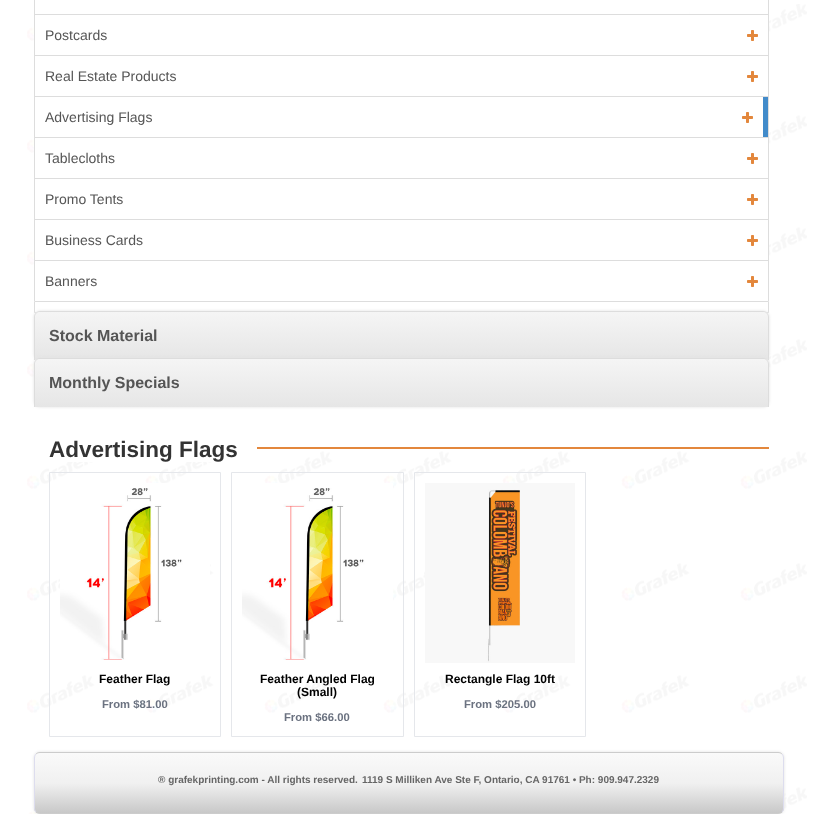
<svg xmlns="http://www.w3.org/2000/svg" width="817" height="814">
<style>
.a{font:14px Liberation Sans;fill:#555}
.b{font:bold 16px Liberation Sans;fill:#555}
.c{font:bold 22.5px Liberation Sans;fill:#333}
.d{font:bold 12px Liberation Sans;fill:#000}
.e{font:bold 11.25px Liberation Sans;fill:#6b7280}
.f{font:bold 10px Liberation Sans;fill:#666}
</style>
<defs>
<clipPath id="clip1"><path d="M40 311h723c3.5 0 6 2.5 6 6v43h-735v-43c0-3.5 2.5-6 6-6z"/></clipPath>
<linearGradient id="g1" gradientUnits="userSpaceOnUse" x1="402" y1="312" x2="402" y2="360"><stop offset="0" stop-color="#f5f5f5"/><stop offset="1" stop-color="#e6e6e6"/></linearGradient>
<clipPath id="clip2"><path d="M40 358h723c3.5 0 6 2.5 6 6v43h-735v-43c0-3.5 2.5-6 6-6z"/></clipPath>
<linearGradient id="g2" gradientUnits="userSpaceOnUse" x1="402" y1="359" x2="402" y2="407"><stop offset="0" stop-color="#f5f5f5"/><stop offset="1" stop-color="#e6e6e6"/></linearGradient>
<clipPath id="clip3"><rect x="34" y="752" width="750" height="62" rx="6"/></clipPath>
<linearGradient id="g3" gradientUnits="userSpaceOnUse" x1="409" y1="753" x2="409" y2="813"><stop offset="0" stop-color="#fafafa"/><stop offset="0.51" stop-color="#f0f0f0"/><stop offset="1" stop-color="#c8c8c8"/><stop offset="1" stop-color="#000"/></linearGradient>
</defs>
<rect width="100%" height="100%" fill="#fff"/>
<image href="1.png" x="27" y="4" width="780" height="810"/>
<path fill="#fff" d="M67 4h622v10H67z"/>
<path fill="#ddd" d="M768 0h1v14H768z"/>
<path fill="#ddd" d="M34 0h1v14H34z"/>
<path fill="#fff" d="M35 15h733v26H35z"/>
<path fill="#ddd" d="M34 14h735v1H34z"/>
<path fill="#ddd" d="M768 14h1v41H768z"/>
<path fill="#ddd" d="M34 14h1v41H34z"/>
<image href="2.png" x="747" y="30" width="11" height="11"/>
<path fill="#ddd" d="M34 55h735v1H34z"/>
<path fill="#ddd" d="M768 55h1v41H768z"/>
<path fill="#ddd" d="M34 55h1v41H34z"/>
<image href="2.png" x="747" y="71" width="11" height="11"/>
<path fill="#fff" d="M41 115h722v22H41z"/>
<path fill="#ddd" d="M34 96h735v1H34z"/>
<path fill="#ddd" d="M768 96h1v41H768z"/>
<path fill="#ddd" d="M34 96h1v41H34z"/>
<path fill="#428bca" d="M763 97h5v40H763z"/>
<image href="2.png" x="742" y="112" width="11" height="11"/>
<path fill="#fff" d="M35 138h733v15H35z"/>
<path fill="#ddd" d="M34 137h735v1H34z"/>
<path fill="#ddd" d="M768 137h1v41H768z"/>
<path fill="#ddd" d="M34 137h1v41H34z"/>
<image href="2.png" x="747" y="153" width="11" height="11"/>
<path fill="#ddd" d="M34 178h735v1H34z"/>
<path fill="#ddd" d="M768 178h1v41H768z"/>
<path fill="#ddd" d="M34 178h1v41H34z"/>
<image href="2.png" x="747" y="194" width="11" height="11"/>
<path fill="#fff" d="M35 227h733v33H35z"/>
<path fill="#ddd" d="M34 219h735v1H34z"/>
<path fill="#ddd" d="M768 219h1v41H768z"/>
<path fill="#ddd" d="M34 219h1v41H34z"/>
<image href="2.png" x="747" y="235" width="11" height="11"/>
<path fill="#fff" d="M35 261h718v4H35z"/>
<path fill="#ddd" d="M34 260h735v1H34z"/>
<path fill="#ddd" d="M768 260h1v41H768z"/>
<path fill="#ddd" d="M34 260h1v41H34z"/>
<image href="2.png" x="747" y="276" width="11" height="11"/>
<path fill="none" stroke="#ddd" d="M34.5 301.5h734v11H34.5z"/>
<rect fill="#e0e0e0" filter="blur(1.5px)" x="34" y="311" width="735" height="49" rx="6"/>
<g clip-path="url(#clip1)">
<path fill="url(#g1)" d="M34 312h735v48H34z"/>
</g>
<path fill="#ddd" fill-rule="evenodd" d="M40 311h723c3 0 6 3 6 6v43h-735v-43c0-3 3-6 6-6zm0 1h723c3 0 5 2 5 5v43h-733v-43c0-3 2-5 5-5z"/>
<rect fill="#e0e0e0" filter="blur(1.5px)" x="34" y="358" width="735" height="49" rx="6"/>
<g clip-path="url(#clip2)">
<path fill="url(#g2)" d="M34 359h735v48H34z"/>
</g>
<path fill="#ddd" fill-rule="evenodd" d="M40 358h723c3 0 6 3 6 6v43h-735v-43c0-3 3-6 6-6zm0 1h723c3 0 5 2 5 5v43h-733v-43c0-3 2-5 5-5z"/>
<path fill="#fff" d="M67 451h146v11H67z"/>
<path fill="#e3873c" d="M257 447h512v2H257z"/>
<path fill="none" stroke="#e5e7eb" d="M49.5 472.5h171v264H49.5z"/>
<image href="3.png" x="60" y="483" width="150" height="177"/>
<path fill="none" stroke="#e5e7eb" d="M231.5 472.5h172v264H231.5z"/>
<image href="4.png" x="242" y="483" width="151" height="177"/>
<path fill="none" stroke="#e5e7eb" d="M414.5 472.5h171v264H414.5z"/>
<image href="5.png" x="425" y="483" width="150" height="180"/>
<rect fill="#e0e0e0" filter="blur(1.5px)" x="34" y="752" width="750" height="62" rx="6"/>
<g clip-path="url(#clip3)">
<path fill="url(#g3)" d="M34 753h750v60H34z"/>
</g>
<path fill="none" stroke="#ccc" d="M36 754c1-1 2.5-1.5 4-1.5h738c1.5 0 3 .5 4 1.5"/>
<path fill="none" stroke="#dde" d="M782 754c1 1 1.5 2.5 1.5 4v50c0 1.5-.5 3-1.5 4"/>
<path fill="none" stroke="#ccc" d="M782 812c-1 1-2.5 1.5-4 1.5h-738c-1.5 0-3-.5-4-1.5"/>
<path fill="none" stroke="#dde" d="M36 812c-1-1-1.5-2.5-1.5-4v-50c0-1.5 .5-3 1.5-4"/>
<text class="a" x="45" y="40">Postcards</text>
<text class="a" x="45" y="81">Real Estate Products</text>
<text class="a" x="45" y="122">Advertising Flags</text>
<text class="a" x="45" y="163">Tablecloths</text>
<text class="a" x="45" y="204">Promo Tents</text>
<text class="a" x="45" y="245">Business Cards</text>
<text class="a" x="45" y="286">Banners</text>
<text class="b" x="49" y="341">Stock Material</text>
<text class="b" x="49" y="388">Monthly Specials</text>
<text class="c" x="49" y="457">Advertising Flags</text>
<text class="d" x="99" y="683">Feather Flag</text>
<text class="e" x="102" y="708">From $81.00</text>
<text class="d" x="260" y="683">Feather Angled Flag</text>
<text class="d" x="297" y="696">(Small)</text>
<text class="e" x="284" y="721">From $66.00</text>
<text class="d" x="445" y="683">Rectangle Flag 10ft</text>
<text class="e" x="464" y="708">From $205.00</text>
<text class="f" x="158" y="783">® grafekprinting.com - All rights reserved.</text>
<text class="f" x="362" y="783">1119 S Milliken Ave Ste F, Ontario, CA 91761 • Ph: 909.947.2329</text>
</svg>
